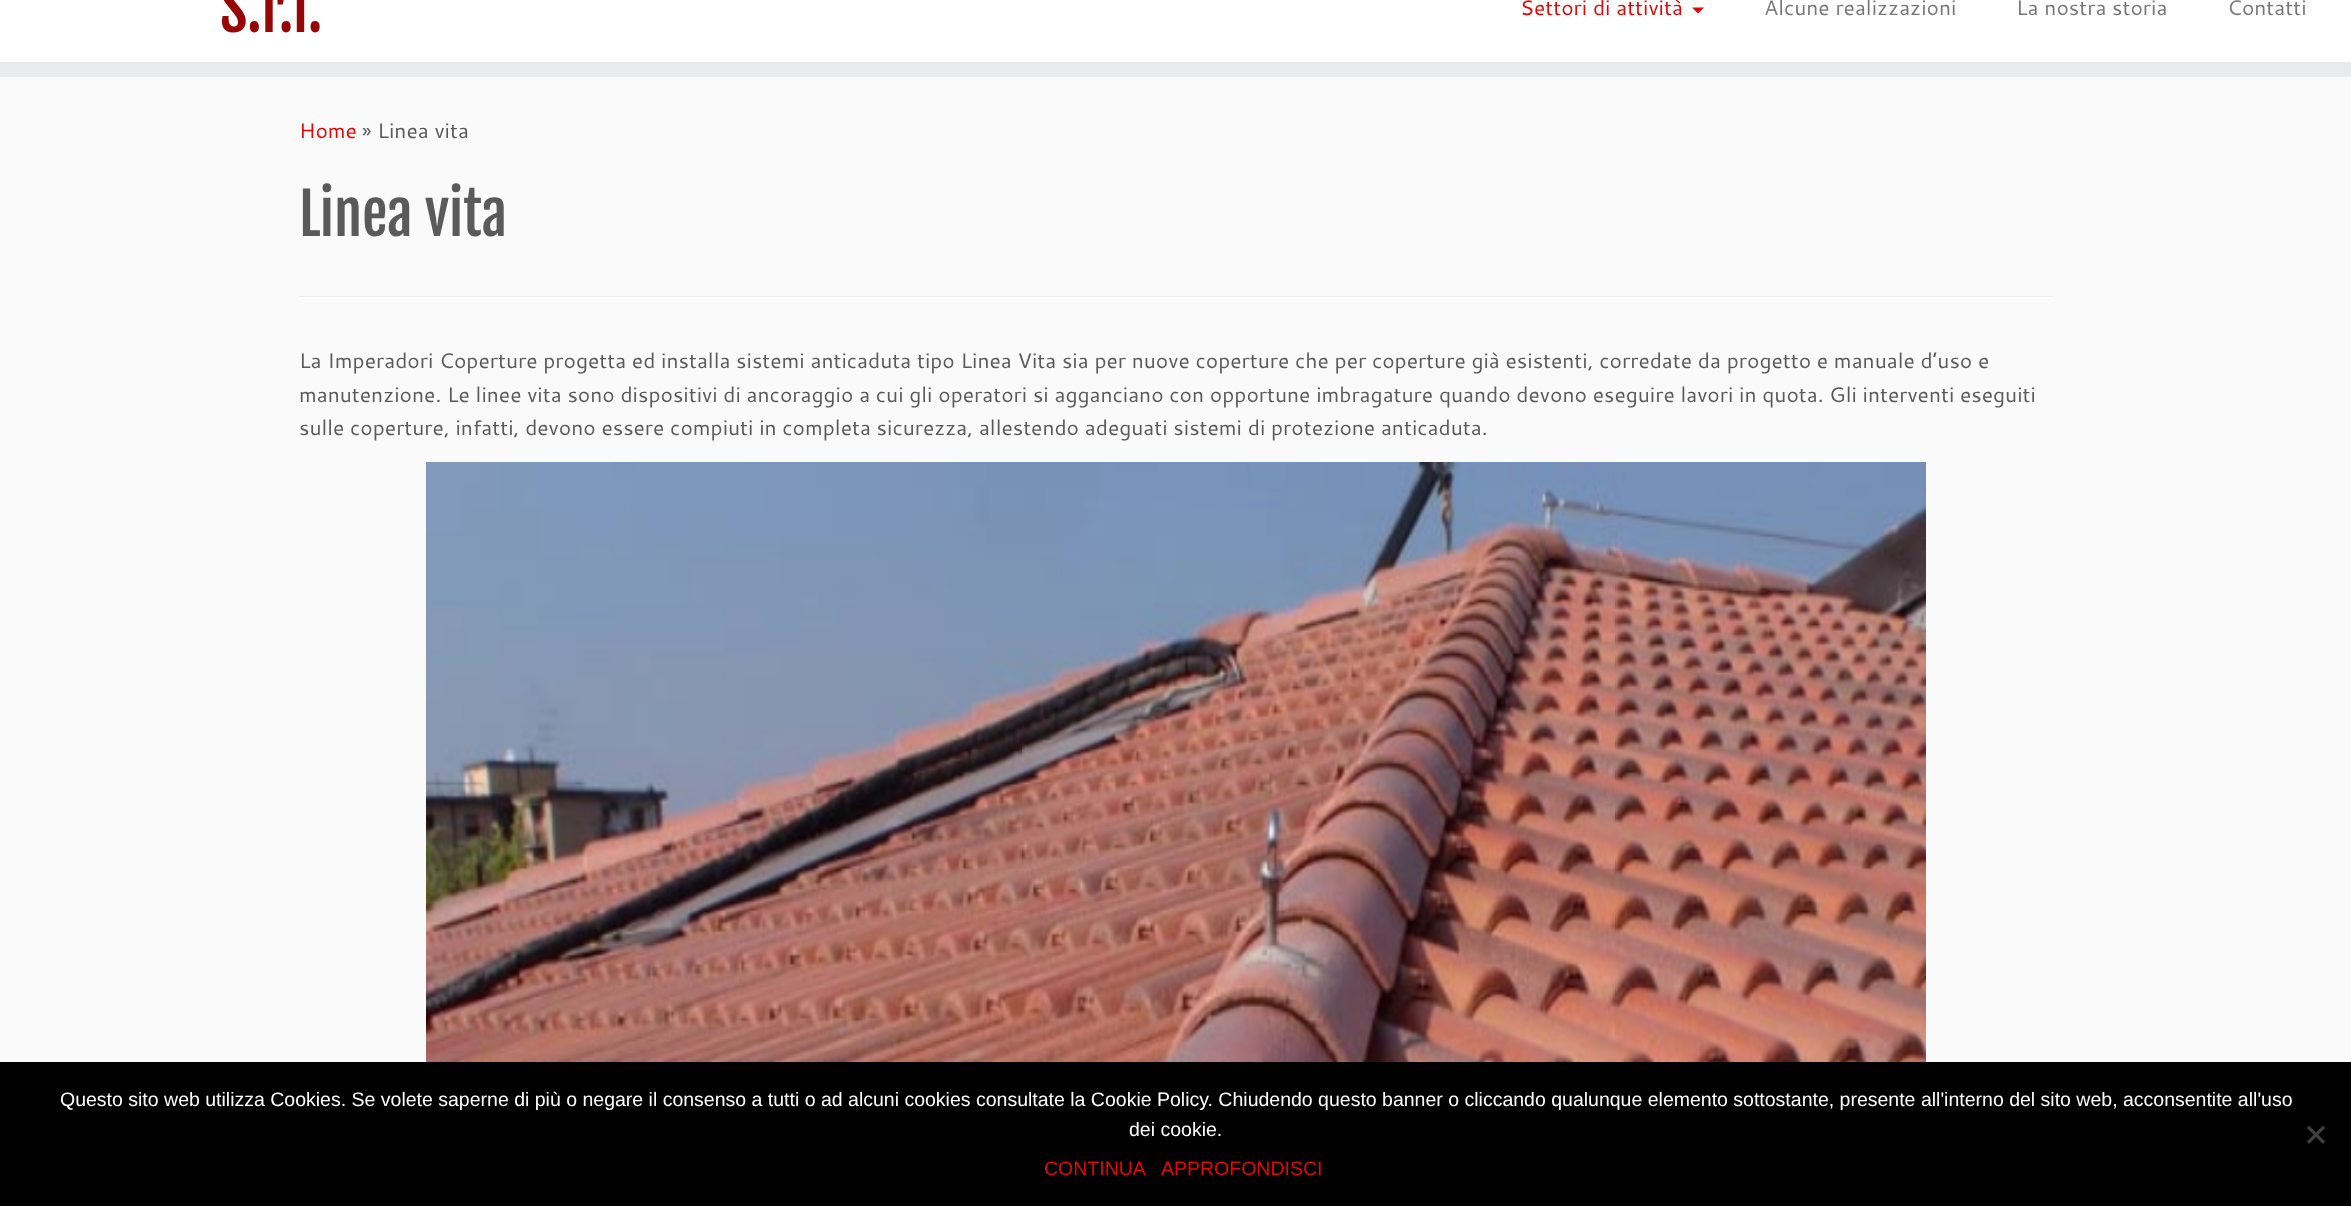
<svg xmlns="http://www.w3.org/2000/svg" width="2351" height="1206">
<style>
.a{font:60px Fjalla One;fill:#970505}
.b{font:21px Cantarell;fill:#e10707}
.c{font:21px Cantarell;fill:#777}
.d{font:21px Cantarell;fill:#5a5a5a}
.e{font:57px Fjalla One;fill:#5a5a5a}
.f{font:19.5px Liberation Sans;fill:#fff}
.g{font:19.5px Liberation Sans;fill:#e10707}
</style>
<rect width="100%" height="100%" fill="#fafafa"/>
<path fill="#fff" d="M0 0h2351v62H0z"/>
<path fill="#e9eaee" d="M0 62h2351v15H0z"/>
<path fill="#e10707" d="M1692 7.5h12l-6 6z"/>
<path fill="#eee" d="M299 296h1755v1H299z"/>
<path fill="#fff" d="M299 297h1755v2H299z"/>
<image href="1.png" x="426" y="462" width="1500" height="600"/>
<path fill="#000" d="M0 1062h2351v144H0z"/>
<path fill="#404040" d="M2323 1125.5l2 2.5l-16 16l-2-2.5z"/>
<path fill="#404040" d="M2307 1128l2-2.5l16 16l-2 2.5z"/>
<text class="a" x="220" y="32">S.r.l.</text>
<text class="b" x="1520" y="15">Settori di attività</text>
<text class="c" x="1764" y="15">Alcune realizzazioni</text>
<text class="c" x="2016" y="15">La nostra storia</text>
<text class="c" x="2227" y="15">Contatti</text>
<text class="b" x="299" y="138">Home</text>
<text class="d" x="362" y="138">» Linea vita</text>
<text class="e" x="299" y="236">Linea vita</text>
<text class="d" x="299" y="368">La Imperadori Coperture progetta ed installa sistemi anticaduta tipo Linea Vita sia per nuove coperture che per coperture già esistenti, corredate da progetto e manuale d’uso e</text>
<text class="d" x="299" y="402">manutenzione. Le linee vita sono dispositivi di ancoraggio a cui gli operatori si agganciano con opportune imbragature quando devono eseguire lavori in quota. Gli interventi eseguiti</text>
<text class="d" x="299" y="435">sulle coperture, infatti, devono essere compiuti in completa sicurezza, allestendo adeguati sistemi di protezione anticaduta.</text>
<text class="f" x="60" y="1106">Questo sito web utilizza Cookies. Se volete saperne di più o negare il consenso a tutti o ad alcuni cookies consultate la Cookie Policy. Chiudendo questo banner o cliccando qualunque elemento sottostante, presente all'interno del sito web, acconsentite all'uso</text>
<text class="f" x="1129" y="1136">dei cookie.</text>
<text class="g" x="1044" y="1175">CONTINUA</text>
<text class="g" x="1161" y="1175">APPROFONDISCI</text>
</svg>
